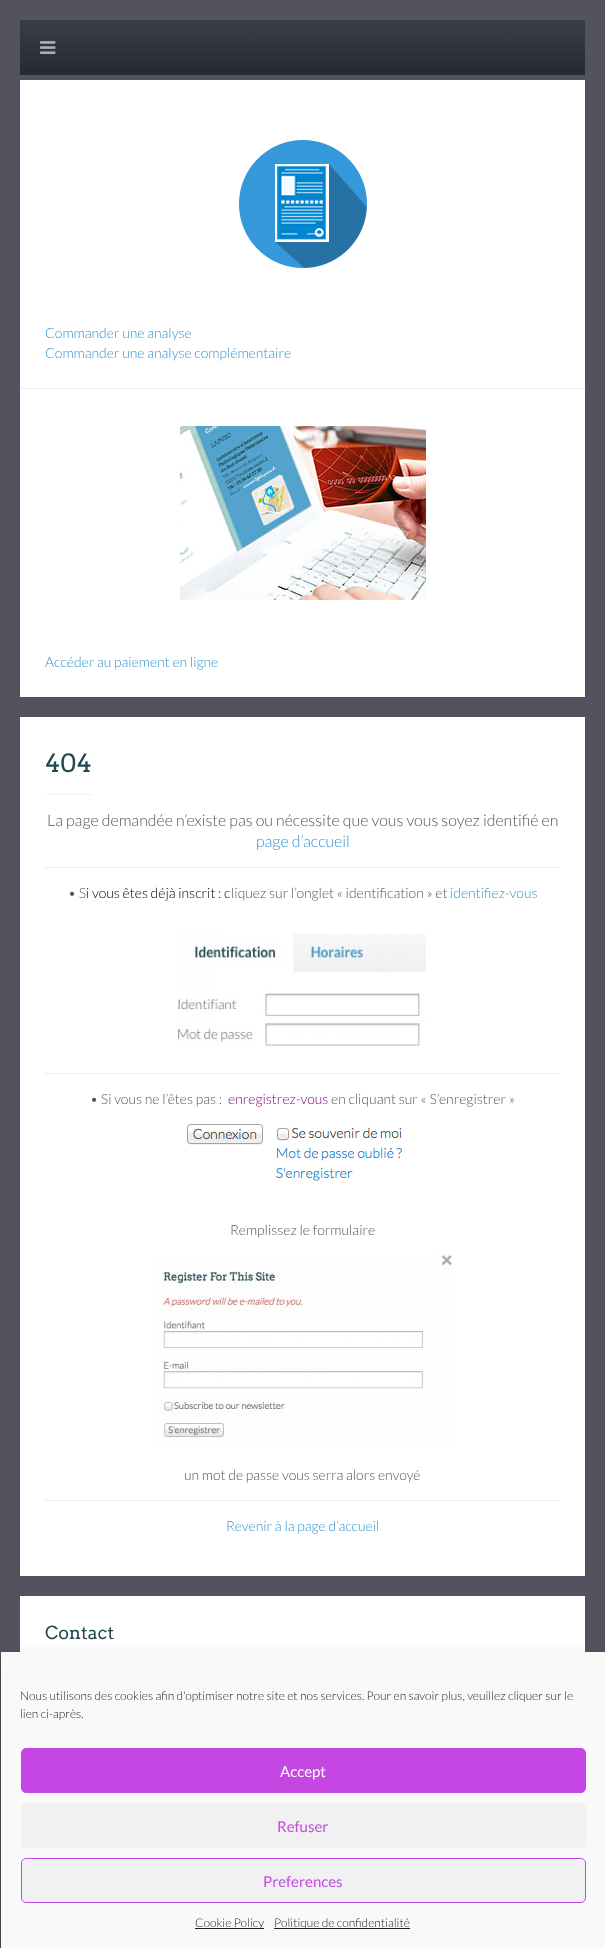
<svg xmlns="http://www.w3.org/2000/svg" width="605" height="1948">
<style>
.a{font:300 14px Lato;fill:#3695cb}
.b{font:25px Arvo;fill:#22494e}
.c{font:300 16px Lato;fill:#535756}
.d{font:300 16px Lato;fill:#3695cb}
.e{font:300 14px Lato;fill:#535756}
.f{font:300 14px Lato;fill:#000}
.g{font:300 14px Lato;fill:#800080}
.h{font:18px Arvo;fill:#22494e}
.i{font:300 12px Lato;fill:#191e23}
.j{font:15px Lato;fill:#fff}
.k{font:15px Lato;fill:#c547e3}
</style>
<defs>
<linearGradient id="g1" gradientUnits="userSpaceOnUse" x1="303" y1="20" x2="303" y2="75"><stop offset="0" stop-color="#3a3f47"/><stop offset="1" stop-color="#252a31"/></linearGradient>
</defs>
<rect width="100%" height="100%" fill="#53525e"/>
<path fill="none" stroke="#50535f" d="M19.5 19.5h566v56H19.5z"/>
<path fill="url(#g1)" d="M20 20h565v55H20z"/>
<image href="1.png" x="40" y="41" width="16" height="13"/>
<path fill="none" stroke="#50535f" d="M19.5 79.5h566v618H19.5z"/>
<path fill="#fff" d="M20 80h565v617H20z"/>
<image href="2.png" x="239" y="140" width="128" height="128"/>
<path fill="#ededed" d="M20 388h565v1H20z"/>
<image href="3.png" x="180" y="426" width="246" height="174"/>
<path fill="none" stroke="#50535f" d="M19.5 716.5h566v860H19.5z"/>
<path fill="#fff" d="M20 717h565v859H20z"/>
<path fill="#f0f0f0" d="M45 794h47v1H45z"/>
<path fill="#ededed" d="M45 867h515v1H45z"/>
<image href="4.png" x="177" y="933" width="249" height="113"/>
<path fill="#ededed" d="M45 1073h515v1H45z"/>
<image href="5.png" x="187" y="1124" width="216" height="57"/>
<image href="6.png" x="153" y="1255" width="300" height="192"/>
<path fill="#ededed" d="M45 1500h515v1H45z"/>
<path fill="#fff" d="M20 1596h565v56H20z"/>
<path fill="#0000003b" filter="blur(3px)" d="M1 1658h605v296H1z"/>
<path fill="#00000030" filter="blur(10px)" d="M1 1662h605v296H1z"/>
<path fill="#f9f9f9" d="M1 1652h604v296H1z"/>
<rect fill="#c547e3" stroke="#c547e3" x="21.5" y="1748.5" width="564" height="44" rx="4.5"/>
<rect fill="#f1f1f1" x="21" y="1803" width="565" height="45" rx="5"/>
<rect fill="#f1f1f1" stroke="#c547e3" x="21.5" y="1858.5" width="564" height="44" rx="4.5"/>
<path fill="#191e23" d="M195 1928h69v1H195z"/>
<path fill="#191e23" d="M274 1928h136v1H274z"/>
<text class="a" x="45" y="338">Commander une analyse</text>
<text class="a" x="45" y="358">Commander une analyse complémentaire</text>
<text class="a" x="45" y="667">Accéder au paiement en ligne</text>
<text class="b" x="45" y="772">404</text>
<text class="c" x="47" y="826">La page demandée n’existe pas ou nécessite que vous vous soyez identifié en</text>
<text class="d" x="256" y="847">page d’accueil</text>
<text class="e" x="68" y="898">• S</text>
<text class="f" x="86" y="898">i vous êtes déjà inscrit : c</text>
<text class="e" x="231" y="898">liquez sur l’onglet « identification » et</text>
<text class="a" x="450" y="898">identifiez-vous</text>
<text class="e" x="90" y="1104">• Si vous ne l’êtes pas :</text>
<text class="g" x="228" y="1104">enregistrez-vous</text>
<text class="e" x="331" y="1104">en cliquant sur « S’enregistrer »</text>
<text class="e" x="230" y="1235">Remplissez le formulaire</text>
<text class="e" x="184" y="1480">un mot de passe vous serra alors envoyé</text>
<text class="a" x="226" y="1531">Revenir à la page d’accueil</text>
<text class="h" x="45" y="1639">Contact</text>
<text class="i" x="20" y="1700">Nous utilisons des cookies afin d'optimiser notre site et nos services. Pour en savoir plus, veuillez cliquer sur le</text>
<text class="i" x="20" y="1718">lien ci-après.</text>
<text class="j" x="280" y="1777">Accept</text>
<text class="k" x="277" y="1832">Refuser</text>
<text class="k" x="263" y="1887">Preferences</text>
<text class="i" x="195" y="1927">Cookie Policy</text>
<text class="i" x="274" y="1927">Politique de confidentialité</text>
</svg>
